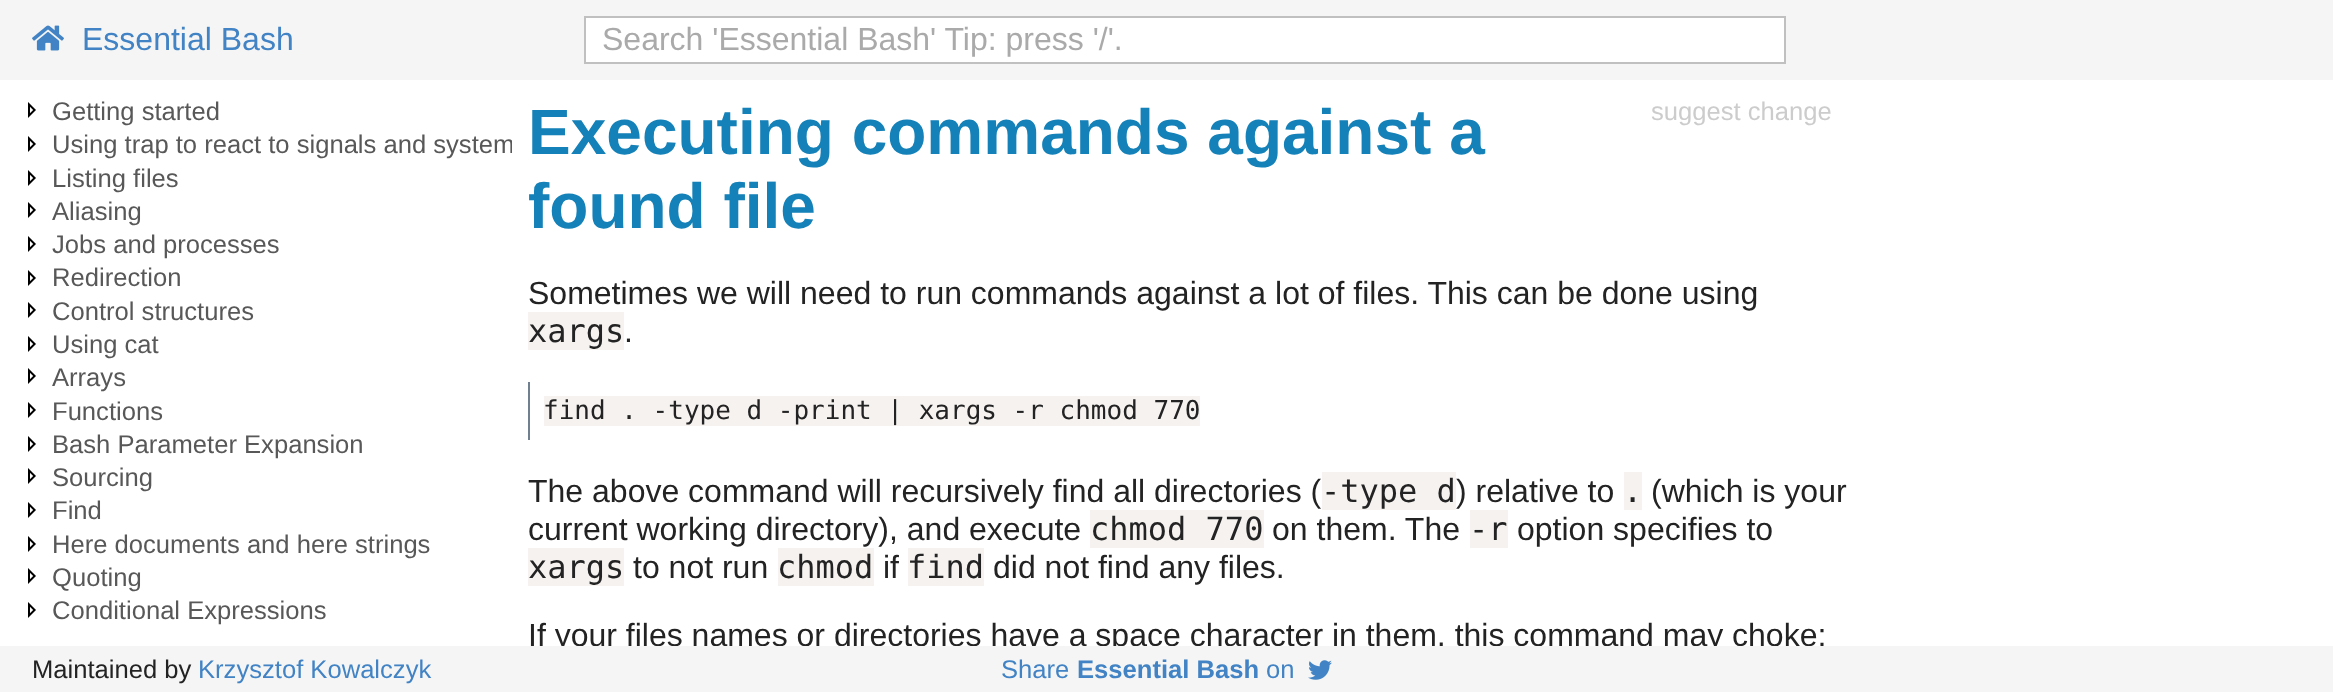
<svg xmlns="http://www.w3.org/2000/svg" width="2333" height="692">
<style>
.a{font:32px Liberation Sans;fill:#4183c4}
.b{font:32px Liberation Sans;fill:#aaa}
.c{font:25.6px Liberation Sans;fill:#585858}
.d{font:bold 64px Liberation Sans;fill:#1481b8}
.e{font:25.6px Liberation Sans;fill:#ccc}
.f{font:32px Liberation Sans;fill:#232323}
.g{font:32px DejaVu Sans Mono;fill:#232323}
.h{font:26px DejaVu Sans Mono;fill:#232323}
.i{font:25.6px Liberation Sans;fill:#232323}
.j{font:25.6px Liberation Sans;fill:#4183c4}
.k{font:bold 25.6px Liberation Sans;fill:#4183c4}
</style>
<defs>
<clipPath id="clip1"><path d="M0 96h512v534H0z"/></clipPath>
<clipPath id="clip2"><path d="M512 80h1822v566H512z"/></clipPath>
</defs>
<rect width="100%" height="100%" fill="#fff"/>
<path fill="#f5f5f5" d="M0 0h2333v80H0z"/>
<image href="1.png" x="32" y="25" width="32" height="26"/>
<path fill="#fff" stroke="#c0c0c0" stroke-width="2" d="M585 17h1200v46H585z"/>
<image href="2.png" x="28" y="102" width="8" height="16"/>
<image href="2.png" x="28" y="136" width="8" height="16"/>
<image href="2.png" x="28" y="170" width="8" height="16"/>
<image href="2.png" x="28" y="202" width="8" height="16"/>
<image href="2.png" x="28" y="236" width="8" height="16"/>
<image href="2.png" x="28" y="270" width="8" height="16"/>
<image href="2.png" x="28" y="302" width="8" height="16"/>
<image href="2.png" x="28" y="336" width="8" height="16"/>
<image href="2.png" x="28" y="368" width="8" height="16"/>
<image href="2.png" x="28" y="402" width="8" height="16"/>
<image href="2.png" x="28" y="436" width="8" height="16"/>
<image href="2.png" x="28" y="468" width="8" height="16"/>
<image href="2.png" x="28" y="502" width="8" height="16"/>
<image href="2.png" x="28" y="536" width="8" height="16"/>
<image href="2.png" x="28" y="568" width="8" height="16"/>
<image href="2.png" x="28" y="602" width="8" height="16"/>
<path fill="#f5f2f0" d="M528 312h96v38H528z"/>
<path fill="#708090" d="M528 382h2v58H528z"/>
<path fill="#f5f2f0" d="M544 396h656v30H544z"/>
<path fill="#f5f2f0" d="M1322 472h134v38H1322z"/>
<path fill="#f5f2f0" d="M1624 472h18v38H1624z"/>
<path fill="#f5f2f0" d="M1090 510h174v38H1090z"/>
<path fill="#f5f2f0" d="M1470 510h38v38H1470z"/>
<path fill="#f5f2f0" d="M528 548h96v38H528z"/>
<path fill="#f5f2f0" d="M778 548h96v38H778z"/>
<path fill="#f5f2f0" d="M908 548h76v38H908z"/>
<path fill="#f5f5f5" d="M0 646h2333v46H0z"/>
<image href="3.png" x="1308" y="660" width="24" height="20"/>
<text class="a" x="82" y="50">Essential Bash</text>
<text class="b" x="602" y="50">Search 'Essential Bash' Tip: press '/'.</text>
<text class="c" x="52" y="120">Getting started</text>
<g clip-path="url(#clip1)">
<text class="c" x="52" y="153">Using trap to react to signals and system</text>
</g>
<text class="c" x="52" y="187">Listing files</text>
<text class="c" x="52" y="220">Aliasing</text>
<text class="c" x="52" y="253">Jobs and processes</text>
<text class="c" x="52" y="286">Redirection</text>
<text class="c" x="52" y="320">Control structures</text>
<text class="c" x="52" y="353">Using cat</text>
<text class="c" x="52" y="386">Arrays</text>
<text class="c" x="52" y="420">Functions</text>
<text class="c" x="52" y="453">Bash Parameter Expansion</text>
<text class="c" x="52" y="486">Sourcing</text>
<text class="c" x="52" y="519">Find</text>
<text class="c" x="52" y="553">Here documents and here strings</text>
<text class="c" x="52" y="586">Quoting</text>
<text class="c" x="52" y="619">Conditional Expressions</text>
<text class="d" x="528" y="154">Executing commands against a</text>
<text class="d" x="528" y="228">found file</text>
<text class="e" x="1651" y="120">suggest change</text>
<text class="f" x="528" y="304">Sometimes we will need to run commands against a lot of files. This can be done using</text>
<text class="g" x="528" y="342">xargs</text>
<text class="f" x="624" y="342">.</text>
<text class="h" x="543" y="419">find . -type d -print | xargs -r chmod 770</text>
<text class="f" x="528" y="502">The above command will recursively find all directories (</text>
<text class="g" x="1321" y="502">-type d</text>
<text class="f" x="1456" y="502">) relative to</text>
<text class="g" x="1623" y="502">.</text>
<text class="f" x="1651" y="502">(which is your</text>
<text class="f" x="528" y="540">current working directory), and execute</text>
<text class="g" x="1090" y="540">chmod 770</text>
<text class="f" x="1272" y="540">on them. The</text>
<text class="g" x="1469" y="540">-r</text>
<text class="f" x="1517" y="540">option specifies to</text>
<text class="g" x="528" y="578">xargs</text>
<text class="f" x="633" y="578">to not run</text>
<text class="g" x="777" y="578">chmod</text>
<text class="f" x="883" y="578">if</text>
<text class="g" x="907" y="578">find</text>
<text class="f" x="993" y="578">did not find any files.</text>
<g clip-path="url(#clip2)">
<text class="f" x="528" y="646">If your files names or directories have a space character in them, this command may choke;</text>
</g>
<text class="i" x="32" y="678">Maintained by</text>
<text class="j" x="198" y="678">Krzysztof Kowalczyk</text>
<text class="j" x="1001" y="678">Share</text>
<text class="k" x="1077" y="678">Essential Bash</text>
<text class="j" x="1266" y="678">on</text>
</svg>
